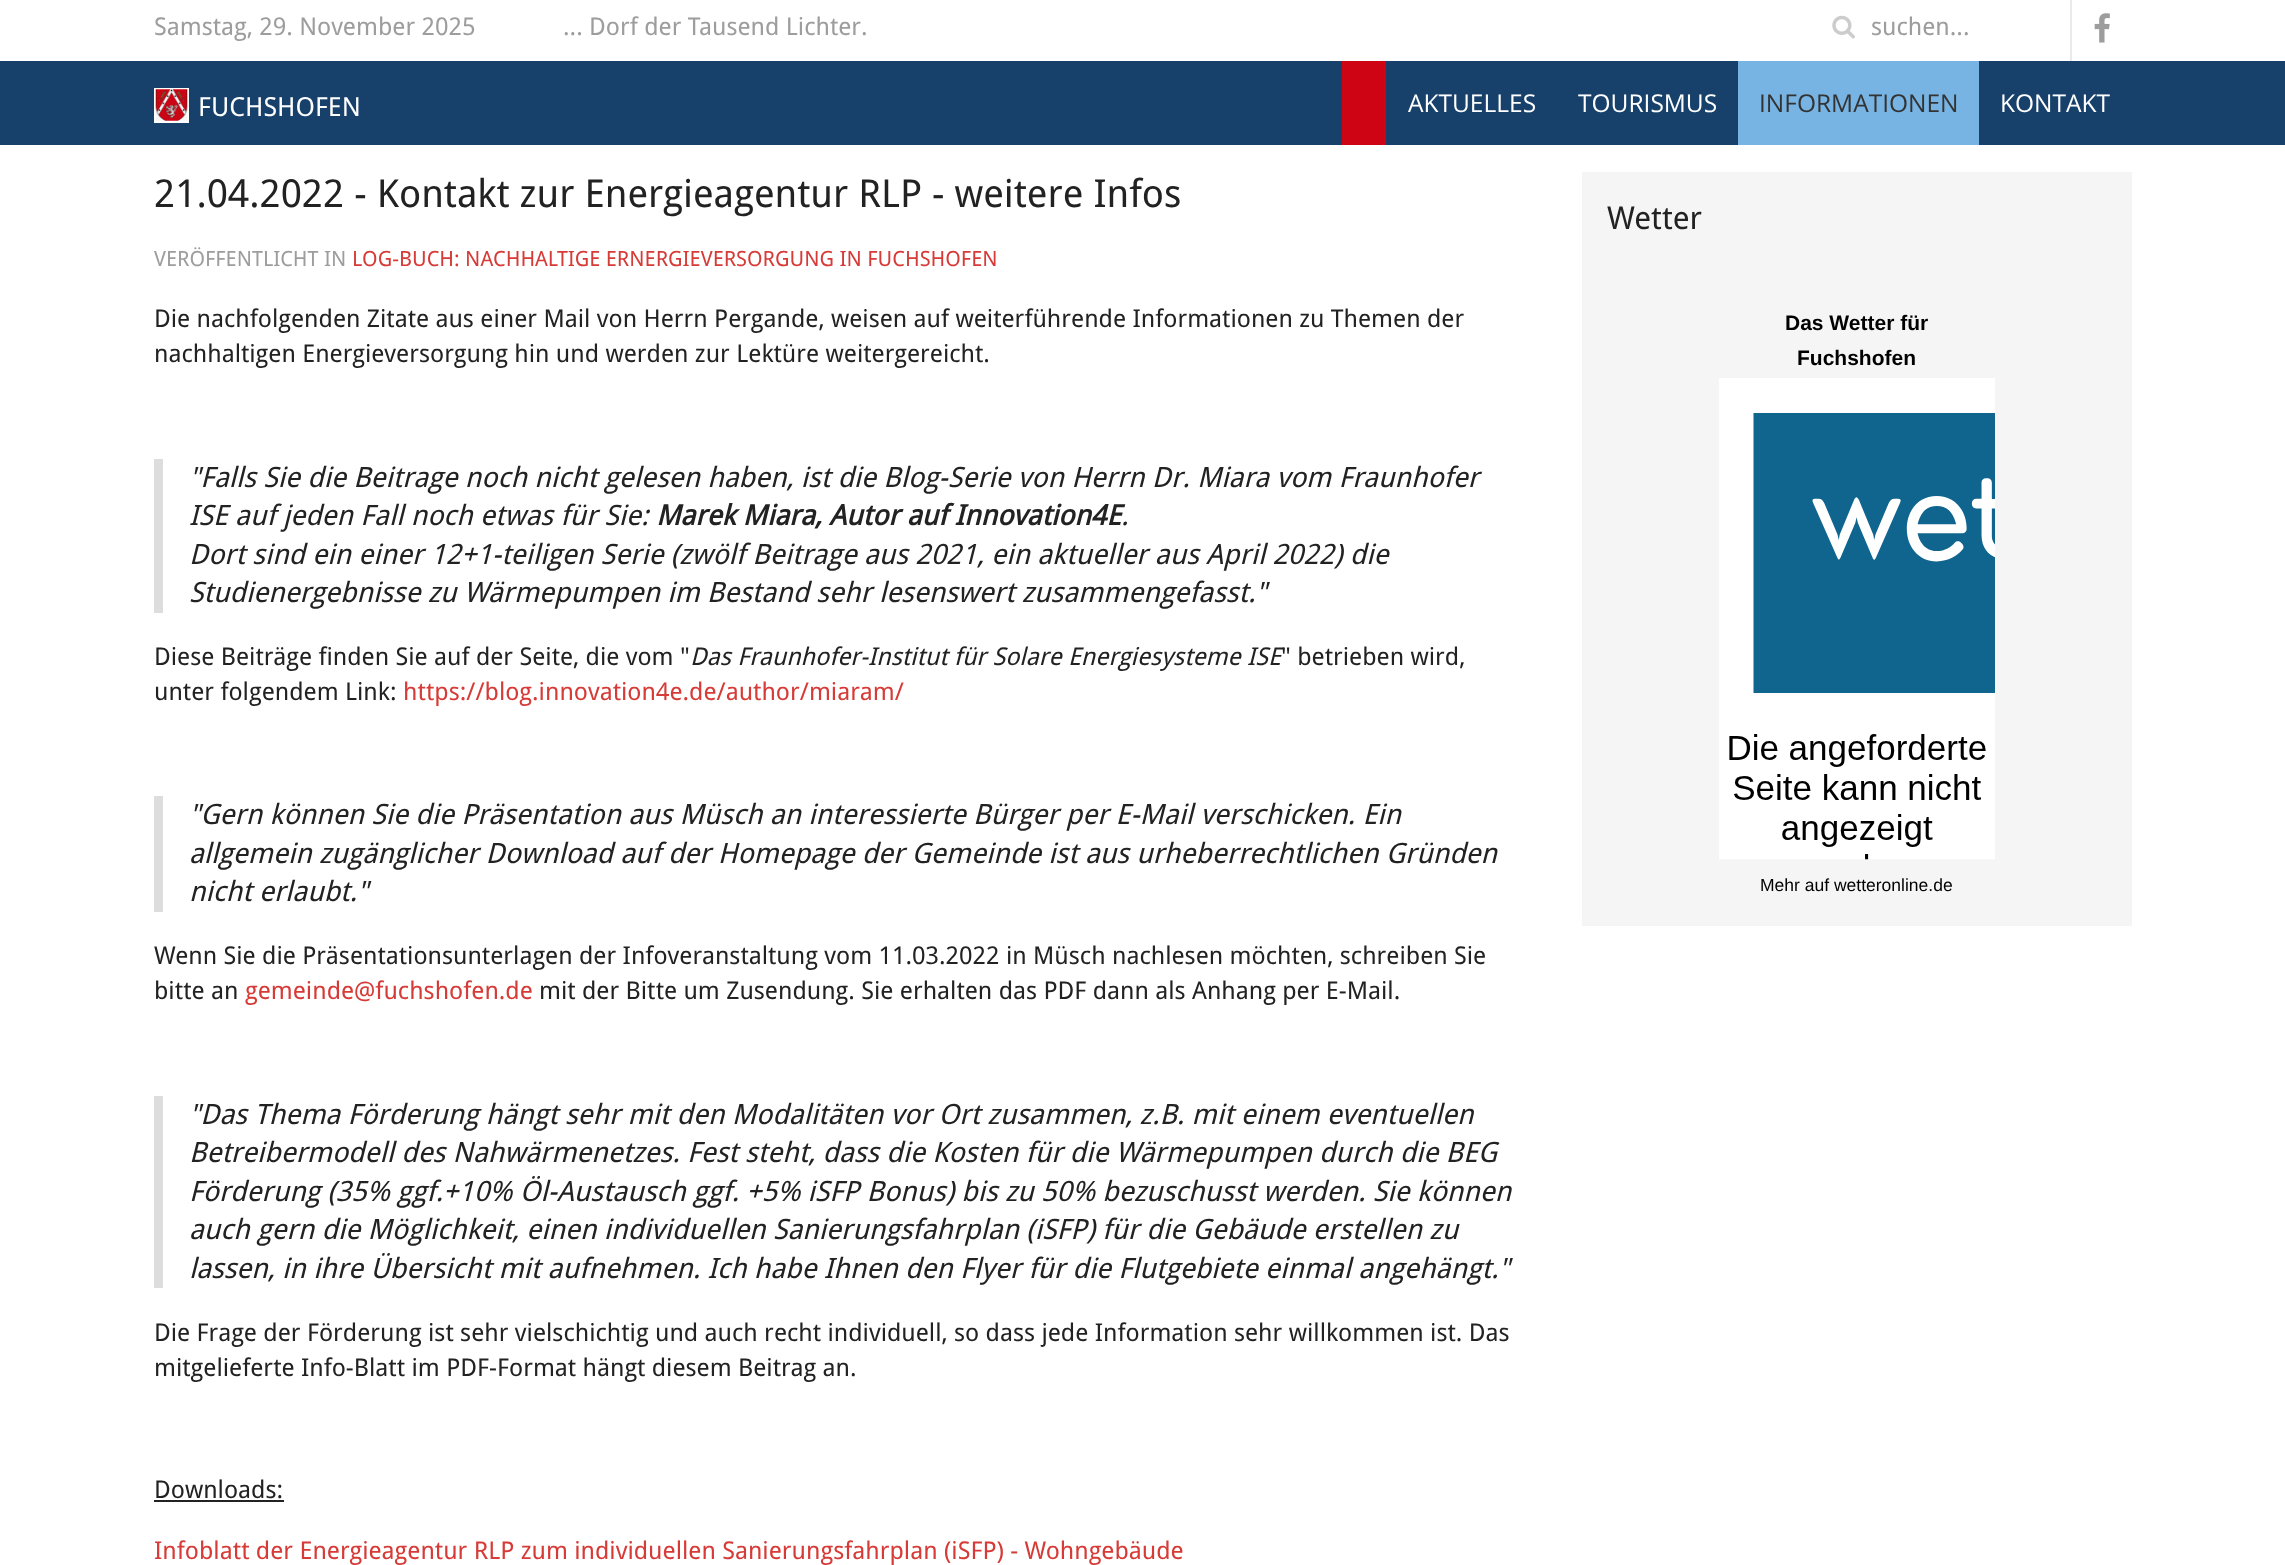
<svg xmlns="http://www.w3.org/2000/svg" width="2285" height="1565">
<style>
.a{font:24.5px Droid Sans;fill:#9d9d9d}
.b{font:26.25px Droid Sans;fill:#fff}
.c{font:24.5px Open Sans;fill:#fff}
.d{font:24.5px Open Sans;fill:#333}
.e{font:38.5px Droid Sans;fill:#222}
.f{font:21px Droid Sans;fill:#9d9d9d}
.g{font:21px Droid Sans;fill:#d63b37}
.h{font:24.5px Droid Sans;fill:#222}
.i{font:italic 28px Droid Sans;fill:#222}
.j{font:italic bold 28px Droid Sans;fill:#222}
.k{font:italic 24.5px Droid Sans;fill:#222}
.l{font:24.5px Droid Sans;fill:#d63b37}
.m{font:31.5px Droid Sans;fill:#222}
.n{font:bold 21px Liberation Sans;fill:#000}
.o{font:17.5px Liberation Sans;fill:#000}
</style>
<rect width="100%" height="100%" fill="#fff"/>
<image href="1.png" x="1832" y="15" width="23" height="24"/>
<path fill="#eaeaea" d="M2070 0h2v61H2070z"/>
<image href="2.png" x="2094" y="13" width="16" height="30"/>
<path fill="#17416b" d="M0 61h2285v84H0z"/>
<path fill="#fff" d="M154 88h35v35H154z"/>
<image href="3.png" x="155" y="89" width="33" height="32"/>
<path fill="#ce0313" d="M1342 61h44v84H1342z"/>
<path fill="#77b4e3" d="M1738 61h241v84H1738z"/>
<path fill="#ddd" d="M154 459h9v154H154z"/>
<path fill="#ddd" d="M154 796h9v116H154z"/>
<path fill="#ddd" d="M154 1096h9v192H154z"/>
<path fill="#222" d="M154 1500h130v2H154z"/>
<path fill="#f5f5f5" d="M1582 172h550v754H1582z"/>
<image href="4.png" x="1719" y="378" width="276" height="482"/>
<text class="a" x="154" y="35">Samstag, 29. November 2025</text>
<text class="a" x="563" y="35">... Dorf der Tausend Lichter.</text>
<text class="a" x="1871" y="35">suchen...</text>
<text class="b" x="198" y="116">FUCHSHOFEN</text>
<text class="c" x="1408" y="112">AKTUELLES</text>
<text class="c" x="1578" y="112">TOURISMUS</text>
<text class="d" x="1759" y="112">INFORMATIONEN</text>
<text class="c" x="2000" y="112">KONTAKT</text>
<text class="e" x="154" y="207">21.04.2022 - Kontakt zur Energieagentur RLP - weitere Infos</text>
<text class="f" x="154" y="266">VERÖFFENTLICHT IN</text>
<text class="g" x="352" y="266">LOG-BUCH: NACHHALTIGE ERNERGIEVERSORGUNG IN FUCHSHOFEN</text>
<text class="h" x="154" y="327">Die nachfolgenden Zitate aus einer Mail von Herrn Pergande, weisen auf weiterführende Informationen zu Themen der</text>
<text class="h" x="154" y="362">nachhaltigen Energieversorgung hin und werden zur Lektüre weitergereicht.</text>
<text class="i" x="189" y="487">"Falls Sie die Beitrage noch nicht gelesen haben, ist die Blog-Serie von Herrn Dr. Miara vom Fraunhofer</text>
<text class="i" x="189" y="525">ISE auf jeden Fall noch etwas für Sie:</text>
<text class="j" x="656" y="525">Marek Miara, Autor auf Innovation4E</text>
<text class="i" x="1121" y="525">.</text>
<text class="i" x="189" y="564">Dort sind ein einer 12+1-teiligen Serie (zwölf Beitrage aus 2021, ein aktueller aus April 2022) die</text>
<text class="i" x="189" y="602">Studienergebnisse zu Wärmepumpen im Bestand sehr lesenswert zusammengefasst."</text>
<text class="h" x="154" y="665">Diese Beiträge finden Sie auf der Seite, die vom "</text>
<text class="k" x="690" y="665">Das Fraunhofer-Institut für Solare Energiesysteme ISE</text>
<text class="h" x="1281" y="665">" betrieben wird,</text>
<text class="h" x="154" y="700">unter folgendem Link:</text>
<text class="l" x="403" y="700">https://blog.innovation4e.de/author/miaram/</text>
<text class="i" x="189" y="824">"Gern können Sie die Präsentation aus Müsch an interessierte Bürger per E-Mail verschicken. Ein</text>
<text class="i" x="189" y="863">allgemein zugänglicher Download auf der Homepage der Gemeinde ist aus urheberrechtlichen Gründen</text>
<text class="i" x="189" y="901">nicht erlaubt."</text>
<text class="h" x="154" y="964">Wenn Sie die Präsentationsunterlagen der Infoveranstaltung vom 11.03.2022 in Müsch nachlesen möchten, schreiben Sie</text>
<text class="h" x="154" y="999">bitte an</text>
<text class="l" x="245" y="999">gemeinde@fuchshofen.de</text>
<text class="h" x="539" y="999">mit der Bitte um Zusendung. Sie erhalten das PDF dann als Anhang per E-Mail.</text>
<text class="i" x="189" y="1124">"Das Thema Förderung hängt sehr mit den Modalitäten vor Ort zusammen, z.B. mit einem eventuellen</text>
<text class="i" x="189" y="1162">Betreibermodell des Nahwärmenetzes. Fest steht, dass die Kosten für die Wärmepumpen durch die BEG</text>
<text class="i" x="189" y="1201">Förderung (35% ggf.+10% Öl-Austausch ggf. +5% iSFP Bonus) bis zu 50% bezuschusst werden. Sie können</text>
<text class="i" x="189" y="1239">auch gern die Möglichkeit, einen individuellen Sanierungsfahrplan (iSFP) für die Gebäude erstellen zu</text>
<text class="i" x="189" y="1278">lassen, in ihre Übersicht mit aufnehmen. Ich habe Ihnen den Flyer für die Flutgebiete einmal angehängt."</text>
<text class="h" x="154" y="1341">Die Frage der Förderung ist sehr vielschichtig und auch recht individuell, so dass jede Information sehr willkommen ist. Das</text>
<text class="h" x="154" y="1376">mitgelieferte Info-Blatt im PDF-Format hängt diesem Beitrag an.</text>
<text class="h" x="154" y="1498">Downloads:</text>
<text class="l" x="154" y="1559">Infoblatt der Energieagentur RLP zum individuellen Sanierungsfahrplan (iSFP) - Wohngebäude</text>
<text class="m" x="1607" y="229">Wetter</text>
<text class="n" x="1785" y="330">Das Wetter für</text>
<text class="n" x="1797" y="365">Fuchshofen</text>
<text class="o" x="1760" y="891">Mehr auf wetteronline.de</text>
</svg>
